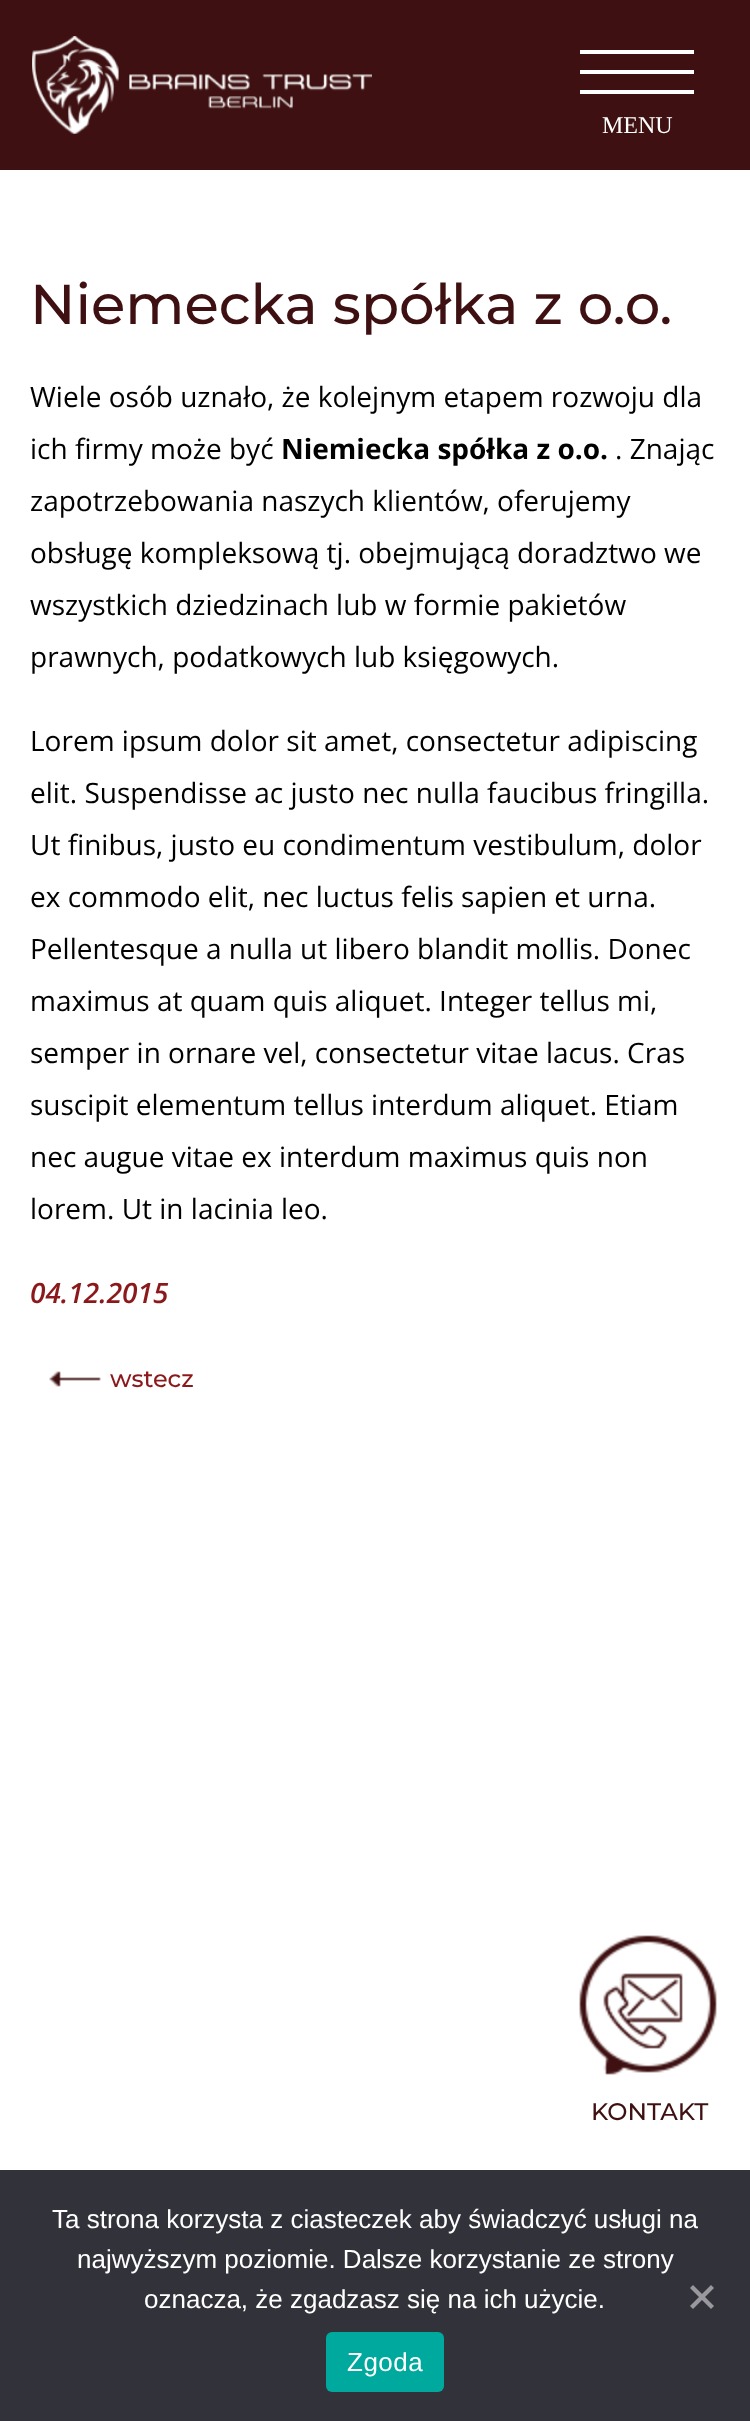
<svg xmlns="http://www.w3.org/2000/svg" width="750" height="2421">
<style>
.a{font:24px Liberation Serif;fill:#fff}
.b{font:500 56px Montserrat;fill:#3e1011}
.c{font:28px Open Sans;fill:#000}
.d{font:bold 28px Open Sans;fill:#000}
.e{font:italic 600 28px Open Sans;fill:#8b191b}
.f{font:500 24px Montserrat;fill:#8b191b}
.g{font:500 24px Montserrat;fill:#3e1011}
.h{font:26px Liberation Sans;fill:#fff}
.i{font:26px Liberation Sans;letter-spacing:0.5px;fill:#fff}
</style>
<rect width="100%" height="100%" fill="#fff"/>
<path fill="#3e1011" d="M0 0h750v170H0z"/>
<image href="1.png" x="32" y="36" width="340" height="98"/>
<path fill="#fff" d="M580 50h114v4H580z"/>
<path fill="#fff" d="M580 70h114v4H580z"/>
<path fill="#fff" d="M580 90h114v4H580z"/>
<image href="2.png" x="49" y="1371" width="52" height="16"/>
<image href="3.png" x="579" y="1935" width="138" height="140"/>
<path fill="#32323a" d="M0 2170h750v251H0z"/>
<path fill="#99999d" d="M711 2285l3 3l-21 21l-3-3z"/>
<path fill="#99999d" d="M690 2288l3-3l21 21l-3 3z"/>
<rect fill="#00a99d" x="326" y="2332" width="118" height="60" rx="6"/>
<text class="a" x="602" y="133">MENU</text>
<text class="b" x="30" y="324">Niemecka spółka z o.o.</text>
<text class="c" x="30" y="407">Wiele osób uznało, że kolejnym etapem rozwoju dla</text>
<text class="c" x="30" y="459">ich firmy może być</text>
<text class="d" x="281" y="459">Niemiecka spółka z o.o.</text>
<text class="c" x="615" y="459">. Znając</text>
<text class="c" x="30" y="511">zapotrzebowania naszych klientów, oferujemy</text>
<text class="c" x="30" y="563">obsługę kompleksową tj. obejmującą doradztwo we</text>
<text class="c" x="30" y="615">wszystkich dziedzinach lub w formie pakietów</text>
<text class="c" x="30" y="667">prawnych, podatkowych lub księgowych.</text>
<text class="c" x="30" y="751">Lorem ipsum dolor sit amet, consectetur adipiscing</text>
<text class="c" x="30" y="803">elit. Suspendisse ac justo nec nulla faucibus fringilla.</text>
<text class="c" x="30" y="855">Ut finibus, justo eu condimentum vestibulum, dolor</text>
<text class="c" x="30" y="907">ex commodo elit, nec luctus felis sapien et urna.</text>
<text class="c" x="30" y="959">Pellentesque a nulla ut libero blandit mollis. Donec</text>
<text class="c" x="30" y="1011">maximus at quam quis aliquet. Integer tellus mi,</text>
<text class="c" x="30" y="1063">semper in ornare vel, consectetur vitae lacus. Cras</text>
<text class="c" x="30" y="1115">suscipit elementum tellus interdum aliquet. Etiam</text>
<text class="c" x="30" y="1167">nec augue vitae ex interdum maximus quis non</text>
<text class="c" x="30" y="1219">lorem. Ut in lacinia leo.</text>
<text class="e" x="30" y="1303">04.12.2015</text>
<text class="f" x="110" y="1387">wstecz</text>
<text class="g" x="591" y="2120">KONTAKT</text>
<text class="h" x="52" y="2228">Ta strona korzysta z ciasteczek aby świadczyć usługi na</text>
<text class="h" x="77" y="2268">najwyższym poziomie. Dalsze korzystanie ze strony</text>
<text class="h" x="144" y="2308">oznacza, że zgadzasz się na ich użycie.</text>
<text class="i" x="347" y="2371">Zgoda</text>
</svg>
